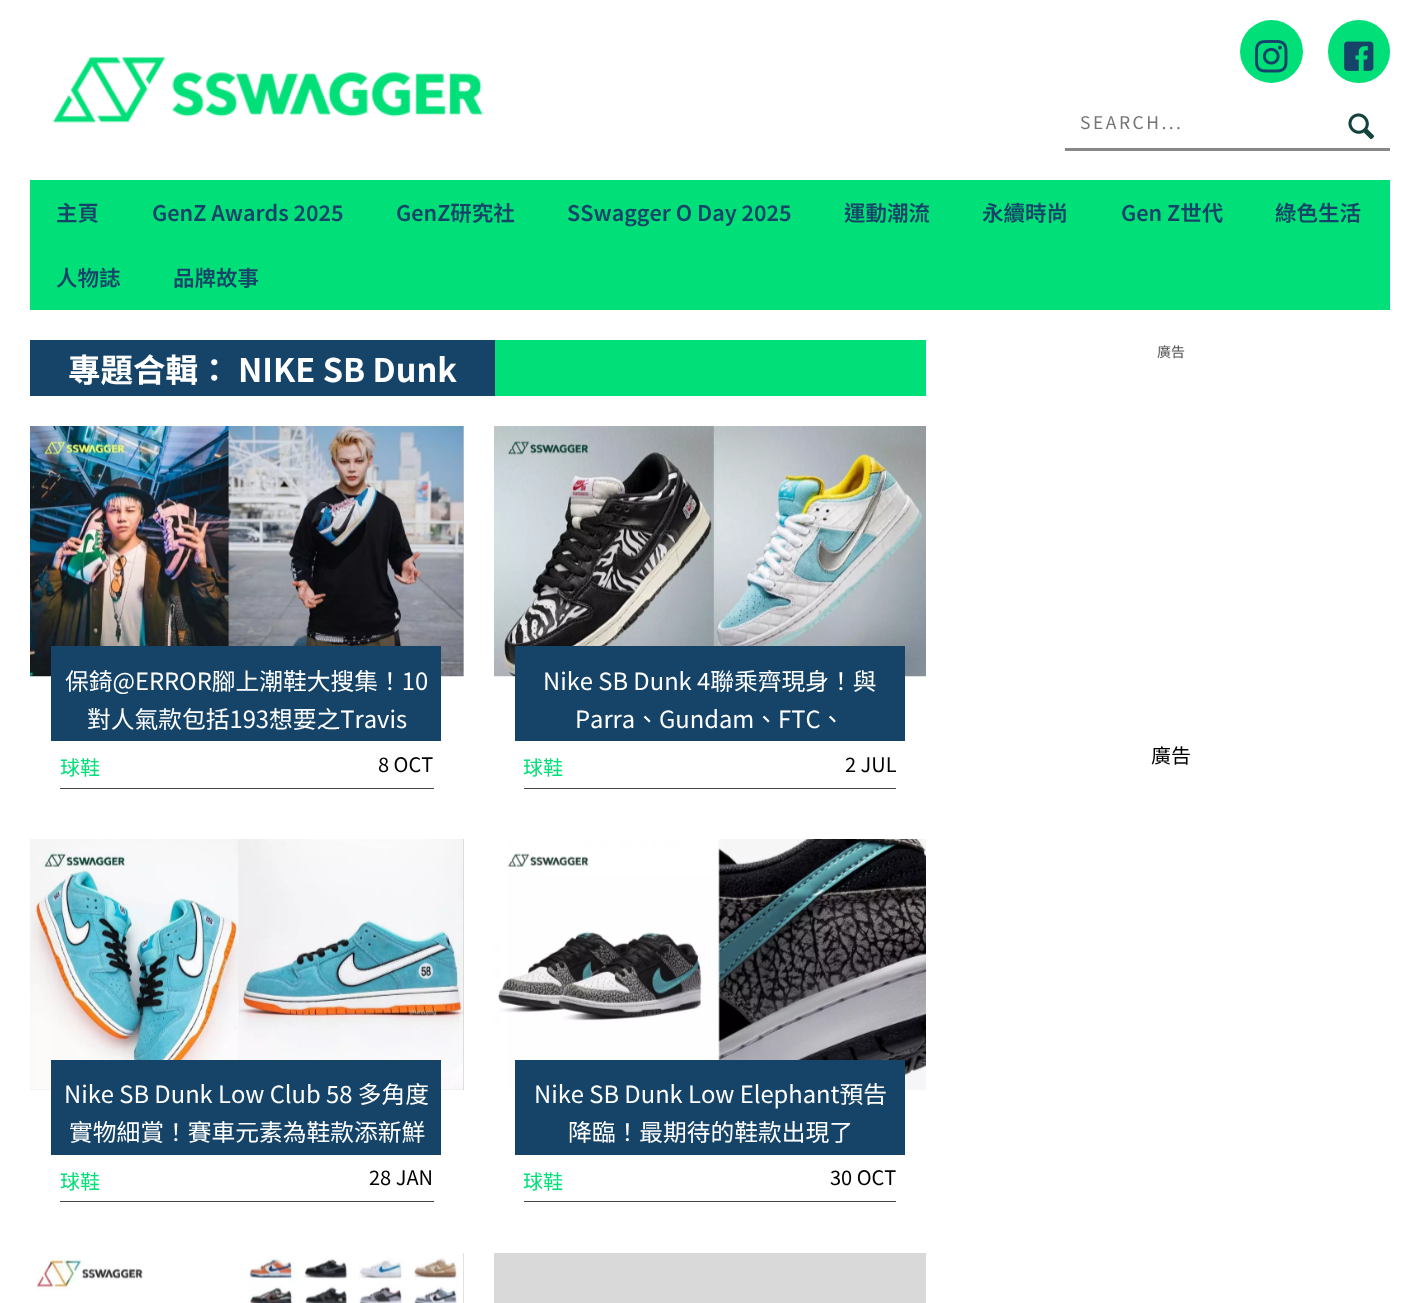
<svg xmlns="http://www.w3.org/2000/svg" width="1420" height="1303">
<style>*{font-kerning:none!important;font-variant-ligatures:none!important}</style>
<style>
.a{font:17.5px Noto Sans TC;letter-spacing:2.5px;fill:#757575}
.b{font:600 21.5px Noto Sans TC;fill:#164468}
.c{font:bold 32.5px Noto Sans TC;fill:#fff}
.d{font:23.75px Noto Sans TC;fill:#fff}
.e{font:20px Noto Sans TC;fill:#00df78}
.f{font:20px Noto Sans TC;fill:#000}
.g{font:14px Noto Sans TC;fill:#505050}
</style>
<rect width="100%" height="100%" fill="#fff"/>
<image href="1.png" x="52" y="56" width="431" height="67"/>
<circle fill="#00df78" cx="1271.5" cy="51.5" r="31.5"/>
<image href="2.png" x="1255" y="40" width="33" height="33"/>
<rect fill="#00df78" x="1328" y="20" width="62" height="63" rx="31"/>
<image href="3.png" x="1344" y="41" width="30" height="30"/>
<path fill="#888" d="M1065 148h325v3H1065z"/>
<image href="4.png" x="1348" y="113" width="27" height="27"/>
<path fill="#00df78" d="M30 180h1360v130H30z"/>
<path fill="#00df78" d="M495 340h431v56H495z"/>
<path fill="#164468" d="M30 340h465v56H30z"/>
<path fill="#ccc" d="M463 426h1v250H463z"/>
<image href="5.png" x="30" y="426" width="434" height="251"/>
<path fill="#164468" d="M51 646h390v95H51z"/>
<path fill="#444" d="M60 788h374v1H60z"/>
<path fill="#ccc" d="M30 839h434v251H30z"/>
<image href="6.png" x="30" y="839" width="434" height="251"/>
<path fill="#164468" d="M51 1060h390v95H51z"/>
<path fill="#444" d="M60 1201h374v1H60z"/>
<path fill="#ccc" d="M463 1253h1v50H463z"/>
<image href="7.png" x="30" y="1253" width="434" height="50"/>
<image href="8.png" x="494" y="426" width="432" height="251"/>
<path fill="#164468" d="M515 646h390v95H515z"/>
<path fill="#444" d="M524 788h372v1H524z"/>
<image href="9.png" x="494" y="839" width="432" height="252"/>
<path fill="#164468" d="M515 1060h390v95H515z"/>
<path fill="#444" d="M524 1201h372v1H524z"/>
<path fill="#d9d9d9" d="M494 1253h432v50H494z"/>
<text class="a" x="1080" y="129">SEARCH...</text>
<text class="b" x="56" y="221">主頁</text>
<text class="b" x="152" y="221">GenZ Awards 2025</text>
<text class="b" x="396" y="221">GenZ研究社</text>
<text class="b" x="567" y="221">SSwagger O Day 2025</text>
<text class="b" x="844" y="221">運動潮流</text>
<text class="b" x="982" y="221">永續時尚</text>
<text class="b" x="1121" y="221">Gen Z世代</text>
<text class="b" x="1275" y="221">綠色生活</text>
<text class="b" x="56" y="286">人物誌</text>
<text class="b" x="173" y="286">品牌故事</text>
<text class="c" x="68" y="382">專題合輯：</text>
<text class="c" x="238" y="382">NIKE SB Dunk</text>
<text class="d" x="65" y="690">保錡@ERROR腳上潮鞋大搜集！10</text>
<text class="d" x="87" y="728">對人氣款包括193想要之Travis</text>
<text class="e" x="60" y="775">球鞋</text>
<text class="f" x="378" y="772">8 OCT</text>
<text class="d" x="64" y="1103">Nike SB Dunk Low Club 58 多角度</text>
<text class="d" x="69" y="1141">實物細賞！賽車元素為鞋款添新鮮</text>
<text class="e" x="60" y="1189">球鞋</text>
<text class="f" x="369" y="1185">28 JAN</text>
<text class="d" x="543" y="690">Nike SB Dunk 4聯乘齊現身！與</text>
<text class="d" x="575" y="728">Parra、Gundam、FTC、</text>
<text class="e" x="523" y="775">球鞋</text>
<text class="f" x="845" y="772">2 JUL</text>
<text class="d" x="534" y="1103">Nike SB Dunk Low Elephant預告</text>
<text class="d" x="568" y="1141">降臨！最期待的鞋款出現了</text>
<text class="e" x="523" y="1189">球鞋</text>
<text class="f" x="830" y="1185">30 OCT</text>
<text class="g" x="1157" y="357">廣告</text>
<text class="f" x="1151" y="763">廣告</text>
</svg>
